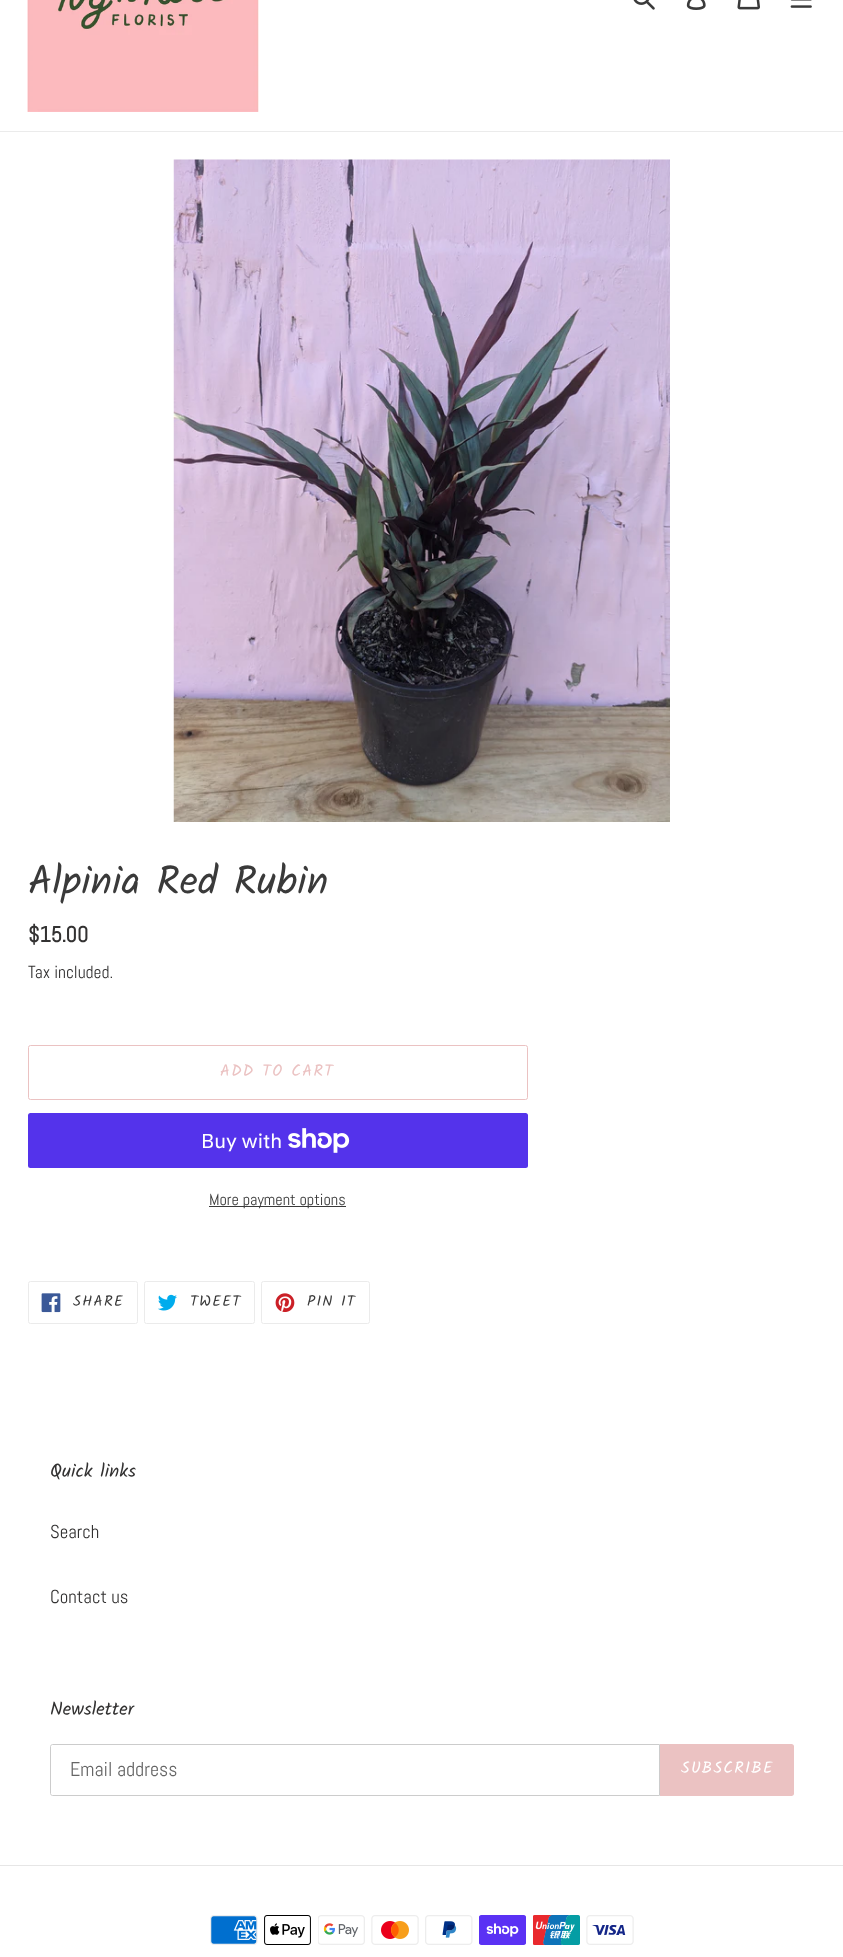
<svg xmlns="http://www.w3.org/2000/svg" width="843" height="1957">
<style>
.a{font:40px Kalam;fill:#3a3a3a}
.b{font:bold 22px Abel;fill:#333232}
.c{font:17.5px Abel;fill:#333232}
.d{font:16.25px Kalam;letter-spacing:1.25px;fill:#ebc2c2}
.e{font:20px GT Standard;fill:#fff}
.f{font:16.25px Abel;fill:#3a3a3a}
.g{font:15px Kalam;letter-spacing:1.25px;fill:#3a3a3a}
.h{font:18.75px Kalam;fill:#333232}
.i{font:18.75px Abel;fill:#333232}
.j{font:20px Abel;fill:#666}
.k{font:16.25px Kalam;letter-spacing:1.25px;fill:#fff}
</style>
<rect width="100%" height="100%" fill="#fff"/>
<path fill="#ebebeb" d="M0 131h843v1H0z"/>
<image href="1.png" x="27" y="0" width="232" height="112"/>
<image href="2.png" x="633" y="0" width="22" height="10"/>
<image href="3.png" x="686" y="0" width="20" height="10"/>
<image href="4.png" x="737" y="0" width="23" height="10"/>
<image href="5.png" x="790" y="0" width="22" height="8"/>
<image href="6.png" x="173" y="159" width="497" height="663"/>
<rect fill="none" stroke="#ebc2c2" x="28.5" y="1045.5" width="499" height="54" rx="2"/>
<rect fill="#5433eb" x="28" y="1113" width="500" height="55" rx="2.5"/>
<image href="7.png" x="288" y="1128" width="62" height="25"/>
<path fill="#3a3a3a" d="M209 1206h137v1H209z"/>
<rect fill="none" stroke="#ebebeb" x="28.5" y="1281.5" width="109" height="42" rx="2"/>
<image href="8.png" x="41" y="1293" width="20" height="20"/>
<rect fill="none" stroke="#ebebeb" x="144.5" y="1281.5" width="110" height="42" rx="2"/>
<image href="9.png" x="158" y="1294" width="19" height="17"/>
<rect fill="none" stroke="#ebebeb" x="261.5" y="1281.5" width="108" height="42" rx="2"/>
<image href="10.png" x="275" y="1293" width="20" height="19"/>
<path fill="none" stroke="#ccc" d="M52.5 1744.5h607v51h-607c-1 0-2-1-2-2v-47c0-1 1-2 2-2z"/>
<path fill="#ebc2c2" d="M660 1744h131.5c1.5 0 2.5 1 2.5 2.5v47c0 1.5-1 2.5-2.5 2.5h-131.5z"/>
<path fill="#e6e6e6" d="M0 1865h843v1H0z"/>
<image href="11.png" x="210" y="1915" width="48" height="30"/>
<image href="12.png" x="264" y="1915" width="47" height="30"/>
<image href="13.png" x="318" y="1915" width="47" height="30"/>
<image href="14.png" x="371" y="1915" width="48" height="30"/>
<image href="15.png" x="425" y="1915" width="48" height="30"/>
<image href="16.png" x="479" y="1915" width="47" height="30"/>
<image href="17.png" x="533" y="1915" width="47" height="30"/>
<image href="18.png" x="586" y="1915" width="48" height="30"/>
<text class="a" x="28" y="894">Alpinia Red Rubin</text>
<text class="b" x="28" y="942">$15.00</text>
<text class="c" x="28" y="978">Tax included.</text>
<text class="d" x="220" y="1076">ADD TO CART</text>
<text class="e" x="201" y="1148">Buy with</text>
<text class="f" x="209" y="1205">More payment options</text>
<text class="g" x="73" y="1306">SHARE</text>
<text class="g" x="190" y="1306">TWEET</text>
<text class="g" x="307" y="1306">PIN IT</text>
<text class="h" x="50" y="1477">Quick links</text>
<text class="i" x="50" y="1538">Search</text>
<text class="i" x="50" y="1603">Contact us</text>
<text class="h" x="50" y="1715">Newsletter</text>
<text class="j" x="70" y="1776">Email address</text>
<text class="k" x="681" y="1773">SUBSCRIBE</text>
</svg>
